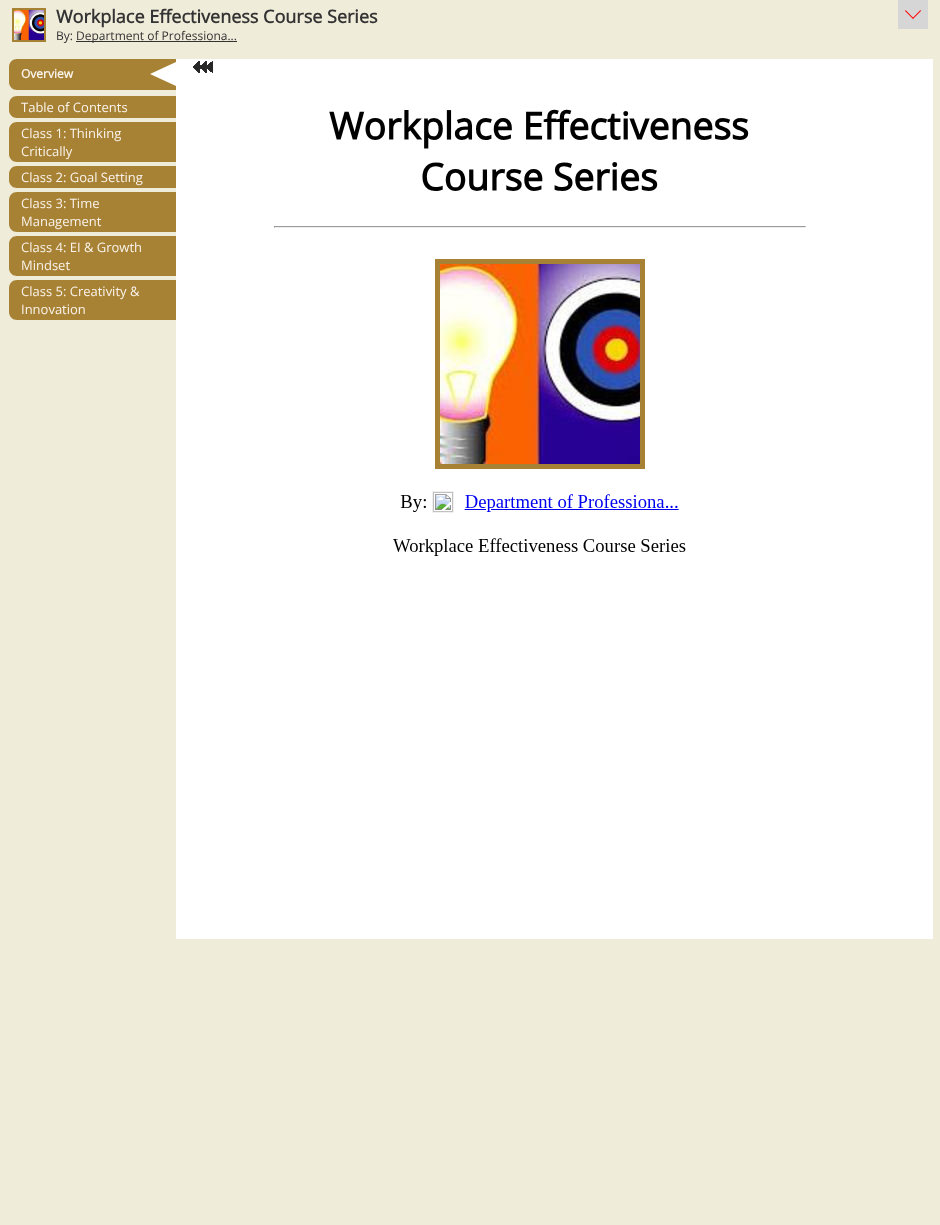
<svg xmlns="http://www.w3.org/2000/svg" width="940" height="1225">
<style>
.a{font:bold 18px Open Sans;fill:#333}
.b{font:12px Open Sans;fill:#333}
.c{font:bold 12px Open Sans;fill:#f9f3eb}
.d{font:13px Open Sans;fill:#f9f3eb}
</style>
<rect width="100%" height="100%" fill="#f0ecda"/>
<path fill="#a88234" d="M12 8h34v34H12z"/>
<image href="1.png" x="14" y="10" width="30" height="30"/>
<path fill="#333" d="M76 41h161v1H76z"/>
<path fill="#fff" d="M176 59h757v880H176z"/>
<image href="2.png" x="274" y="109" width="532" height="447"/>
<image href="3.png" x="193" y="61" width="20" height="12"/>
<path fill="#a88234" d="M17 59h159v31h-159c-4.5 0-8-3.5-8-8v-15c0-4.5 3.5-8 8-8z"/>
<path fill="#fff" d="M176 62v24l-26-12z"/>
<path fill="#a88234" d="M17 96h159v22h-159c-4.5 0-8-3.5-8-8v-6c0-4.5 3.5-8 8-8z"/>
<path fill="#a88234" d="M17 122h159v40h-159c-4.5 0-8-3.5-8-8v-24c0-4.5 3.5-8 8-8z"/>
<path fill="#a88234" d="M17 166h159v22h-159c-4.5 0-8-3.5-8-8v-6c0-4.5 3.5-8 8-8z"/>
<path fill="#a88234" d="M17 192h159v40h-159c-4.5 0-8-3.5-8-8v-24c0-4.5 3.5-8 8-8z"/>
<path fill="#a88234" d="M17 236h159v40h-159c-4.5 0-8-3.5-8-8v-24c0-4.5 3.5-8 8-8z"/>
<path fill="#a88234" d="M17 280h159v40h-159c-4.5 0-8-3.5-8-8v-24c0-4.5 3.5-8 8-8z"/>
<image href="4.png" x="898" y="0" width="30" height="29"/>
<text class="a" x="56" y="23">Workplace Effectiveness Course Series</text>
<text class="b" x="56" y="40">By:</text>
<text class="b" x="76" y="40">Department of Professiona...</text>
<text class="c" x="21" y="78">Overview</text>
<text class="d" x="21" y="112">Table of Contents</text>
<text class="d" x="21" y="138">Class 1: Thinking</text>
<text class="d" x="21" y="156">Critically</text>
<text class="d" x="21" y="182">Class 2: Goal Setting</text>
<text class="d" x="21" y="208">Class 3: Time</text>
<text class="d" x="21" y="226">Management</text>
<text class="d" x="21" y="252">Class 4: EI &amp; Growth</text>
<text class="d" x="21" y="270">Mindset</text>
<text class="d" x="21" y="296">Class 5: Creativity &amp;</text>
<text class="d" x="21" y="314">Innovation</text>
</svg>
